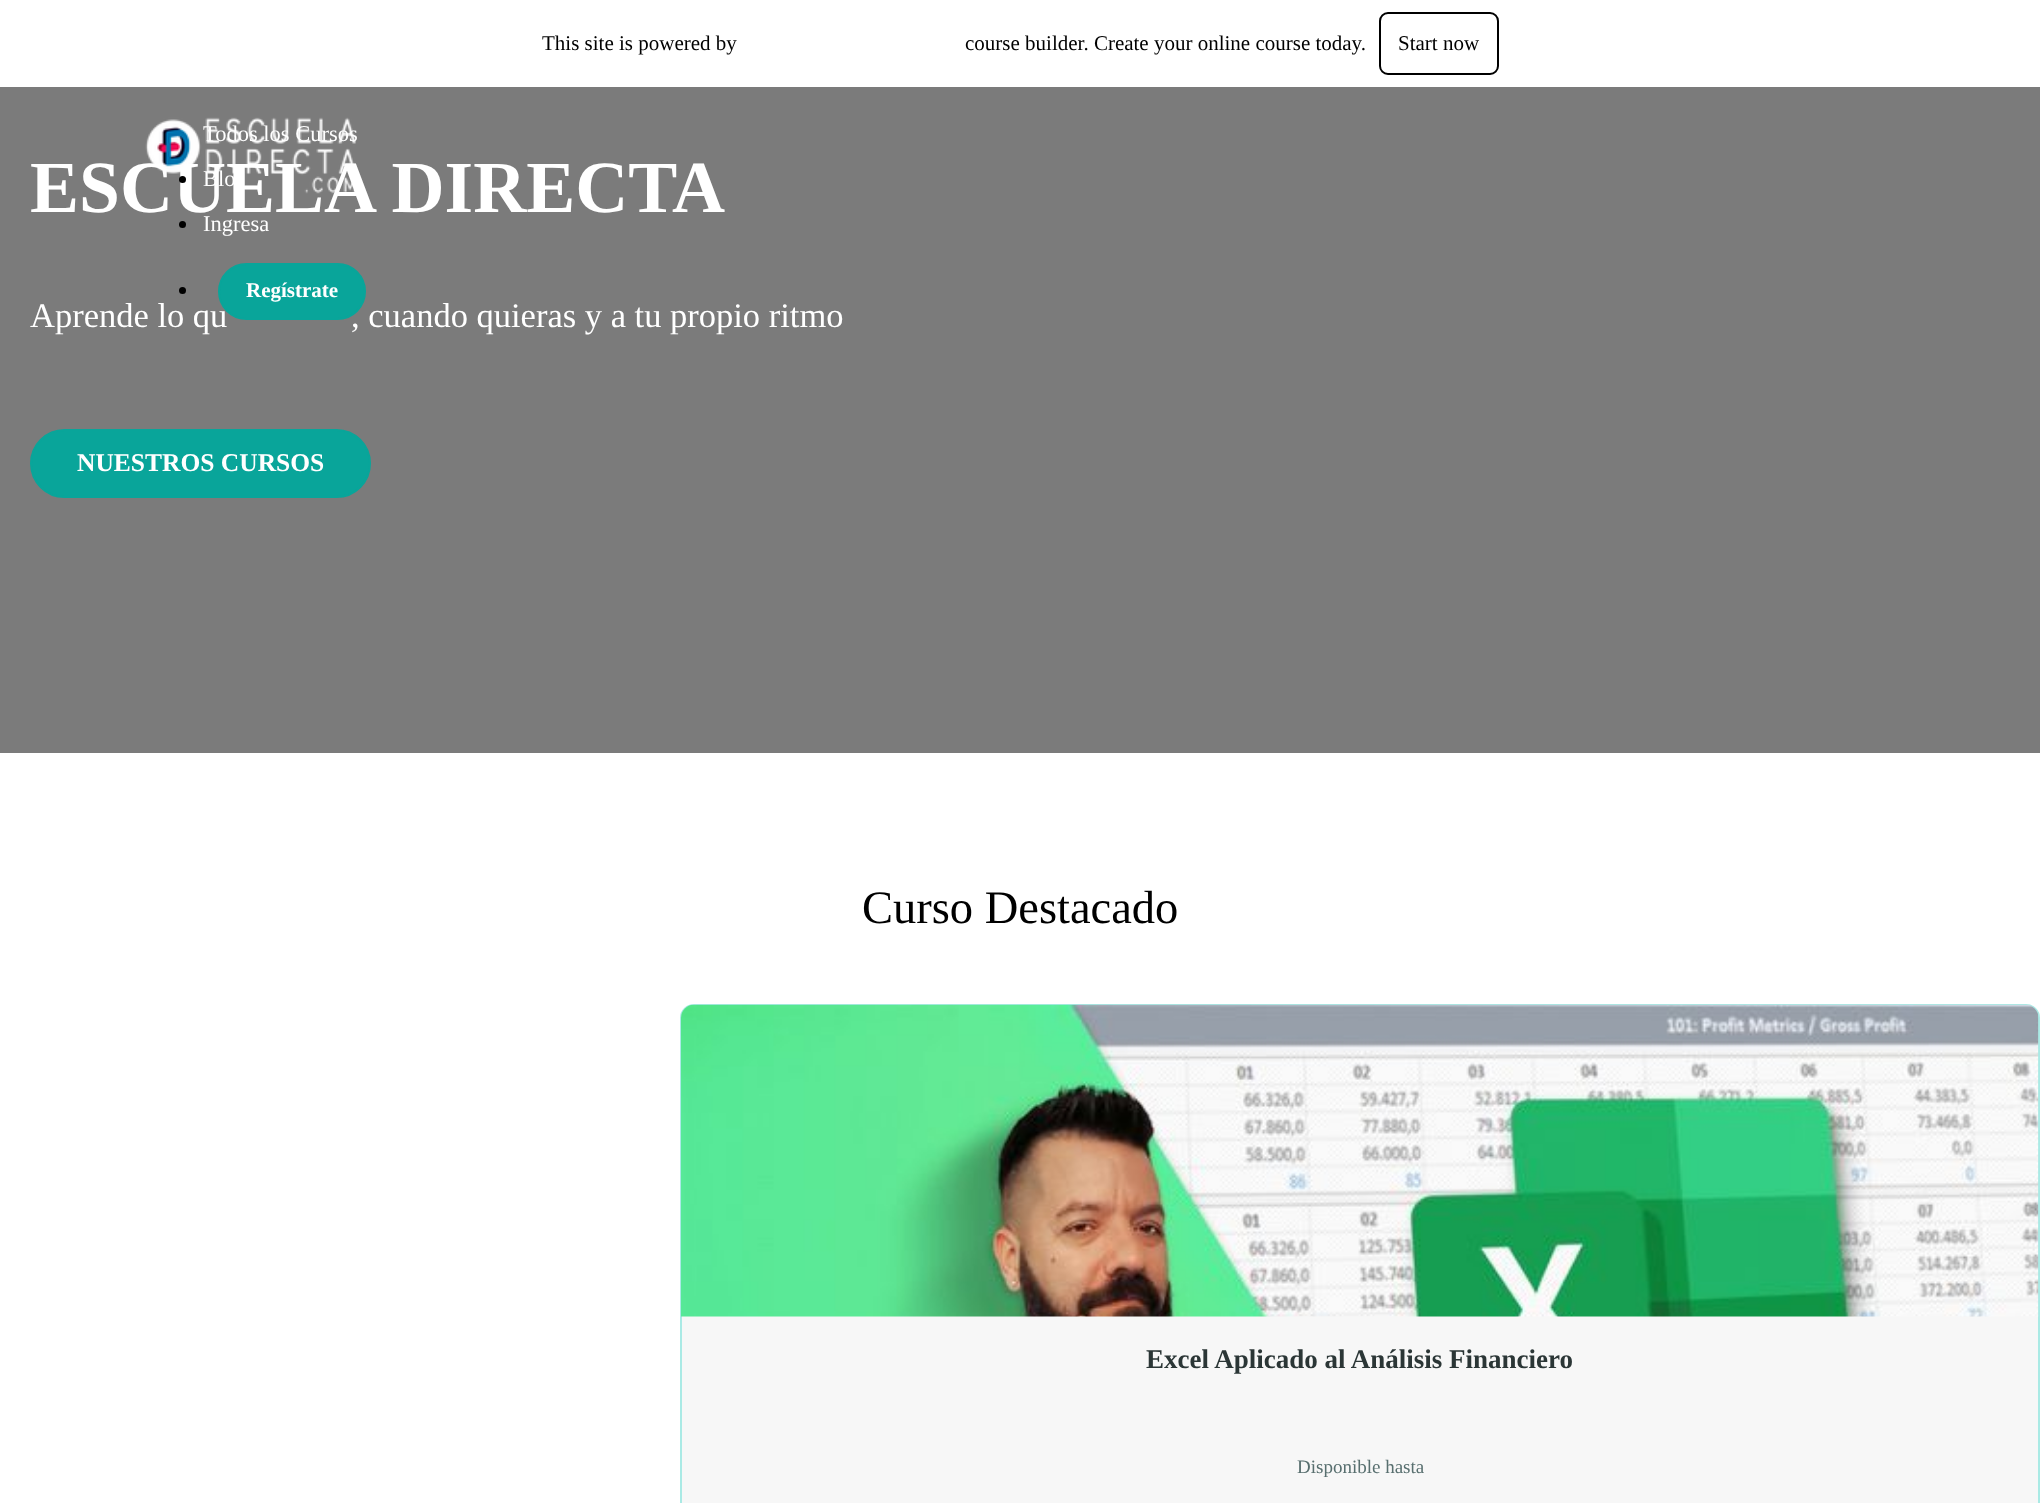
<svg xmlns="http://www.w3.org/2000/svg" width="2040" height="1503">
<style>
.a{font:21px Liberation Serif;fill:#000}
.b{font:22.5px Liberation Serif;fill:#fff}
.c{font:bold 73.5px Liberation Serif;fill:#fff}
.d{font:34.5px Liberation Serif;fill:#fff}
.e{font:bold 21px Liberation Serif;fill:#fff}
.f{font:bold 25.5px Liberation Serif;fill:#fff}
.g{font:46.5px Liberation Serif;fill:#000}
.h{font:bold 27px Liberation Serif;fill:#2b3636}
.i{font:19px Liberation Serif;fill:#586f6f}
</style>
<rect width="100%" height="100%" fill="#fff"/>
<rect fill="none" stroke="#000" stroke-width="2" x="1380" y="13" width="118" height="61" rx="8"/>
<path fill="#7b7b7b" d="M0 87h2040v666H0z"/>
<circle fill="#000" cx="182.5" cy="224.5" r="3.5"/>
<circle fill="#000" cx="182.5" cy="290.5" r="3.5"/>
<rect fill="#09a59a" stroke="#09a59a" stroke-width="2" x="31" y="430" width="339" height="67" rx="33.5"/>
<rect fill="#f7f7f7" stroke="#aaeae5" stroke-width="2" x="681" y="1005" width="1358" height="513" rx="13"/>
<image href="2.png" x="681" y="1004" width="1358" height="313"/>
<text class="a" x="542" y="50">This site is powered by</text>
<text class="a" x="965" y="50">course builder. Create your online course today.</text>
<text class="a" x="1398" y="50">Start now</text>
<text class="b" x="203" y="141">Todos los Cursos</text>
<text class="b" x="203" y="231">Ingresa</text>
<text class="c" x="30" y="212">ESCUELA DIRECTA</text>
<text class="b" x="203" y="186">Blo</text>
<circle fill="#000" cx="182.5" cy="179.5" r="3.5"/>
<image href="1.png" x="145" y="117" width="211" height="77"/>
<text class="d" x="30" y="327">Aprende lo qu</text>
<text class="d" x="351" y="327">, cuando quieras y a tu propio ritmo</text>
<rect fill="#09a59a" stroke="#09a59a" stroke-width="2" x="219" y="264" width="146" height="55" rx="27.5"/>
<text class="e" x="246" y="297">Regístrate</text>
<text class="f" x="77" y="471">NUESTROS CURSOS</text>
<text class="g" x="862" y="923">Curso Destacado</text>
<text class="h" x="1146" y="1368">Excel Aplicado al Análisis Financiero</text>
<text class="i" x="1297" y="1473">Disponible hasta</text>
</svg>
